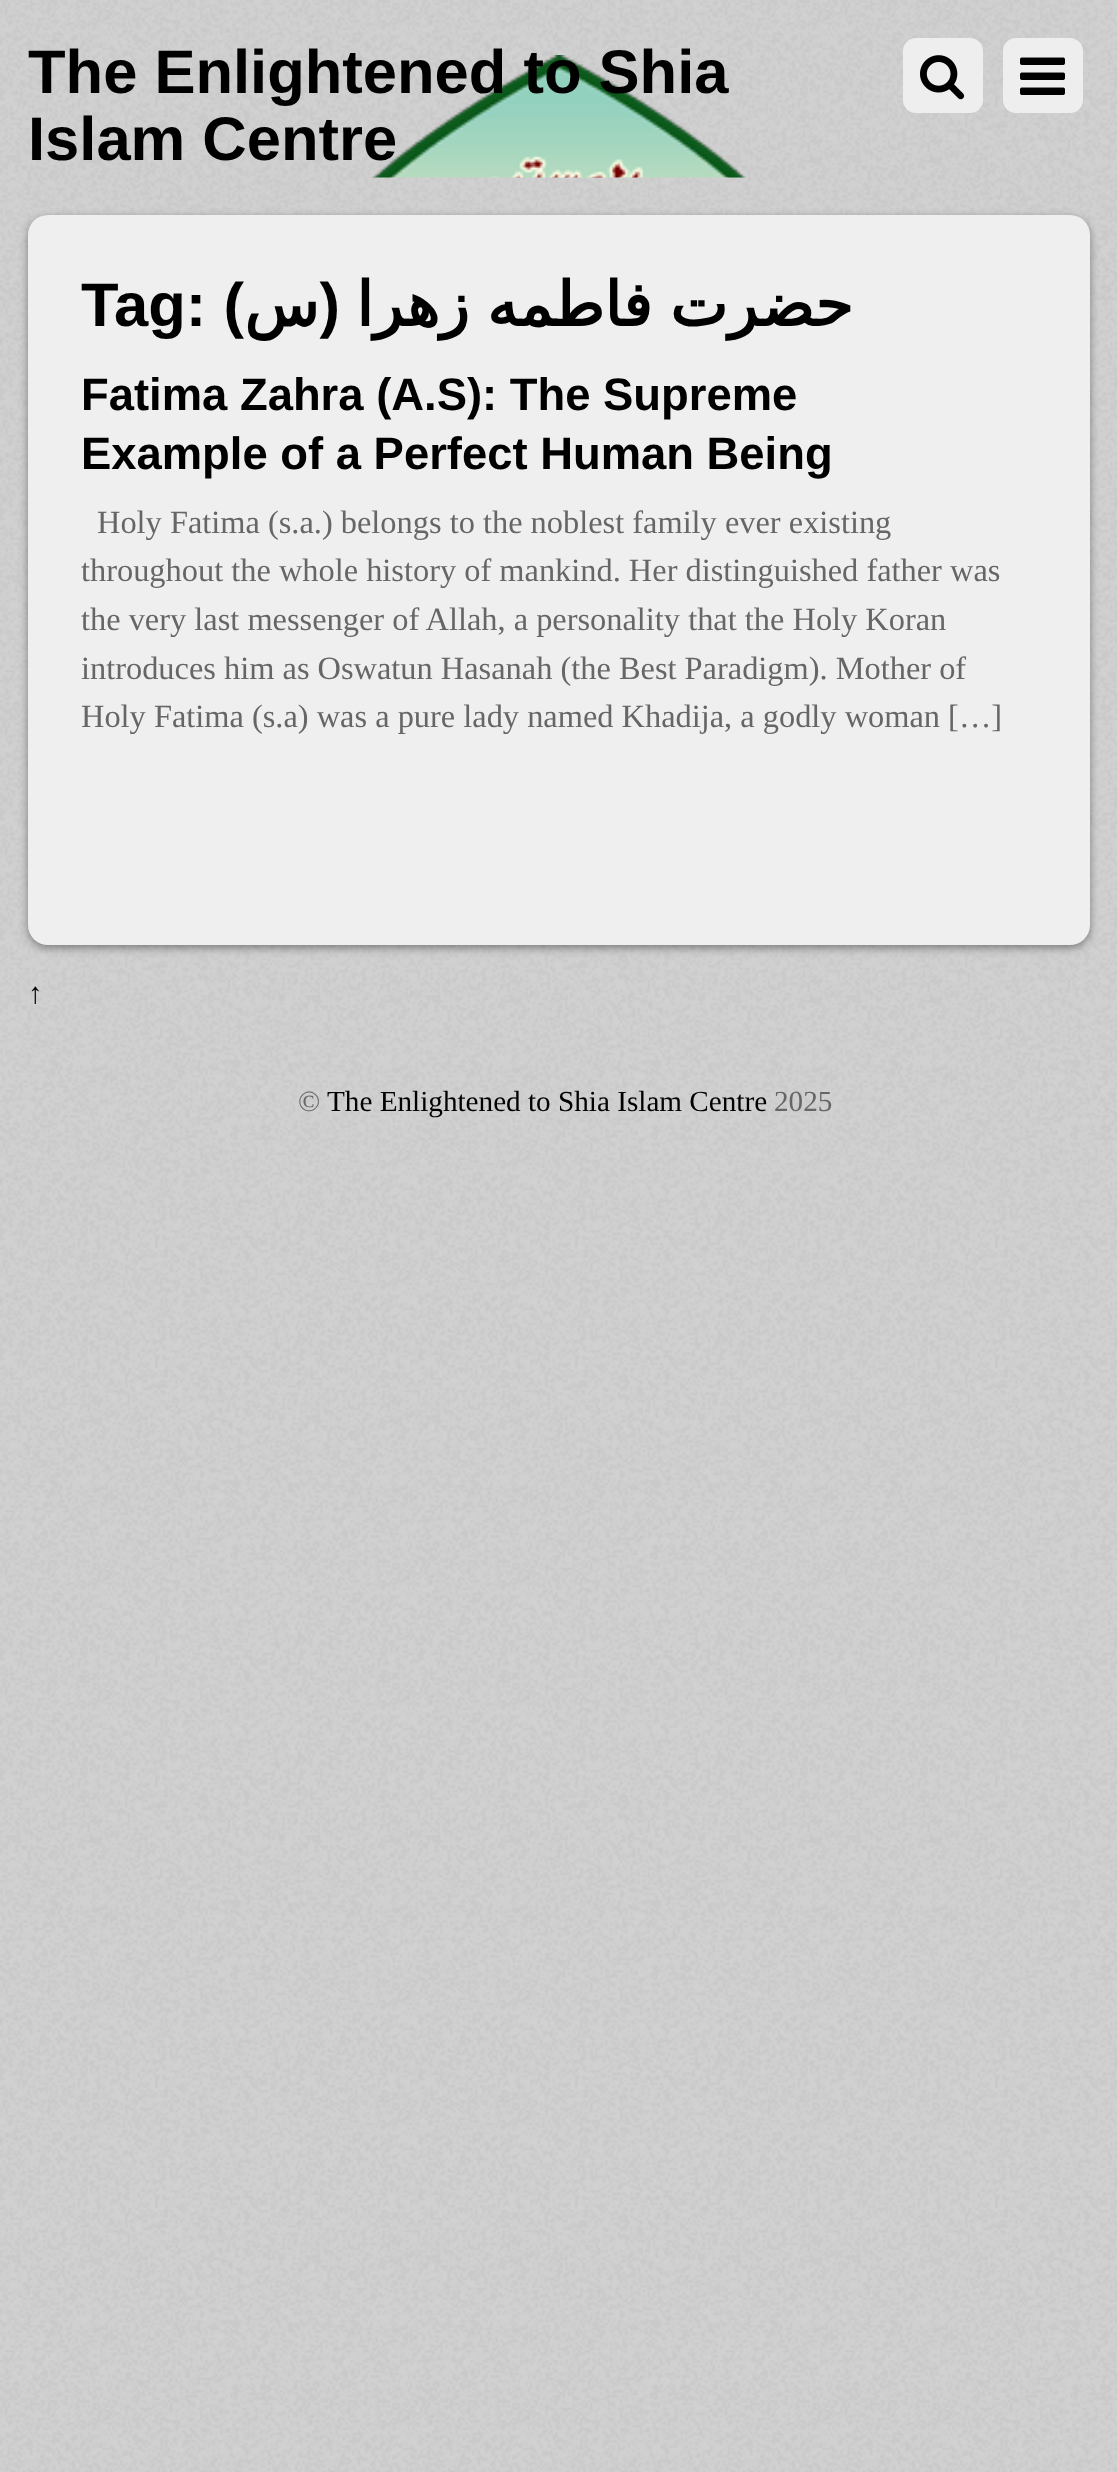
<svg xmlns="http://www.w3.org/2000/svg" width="1117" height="2472">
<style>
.a{font:bold 61.5px Liberation Sans;fill:#000}
.b{font:bold 61.5px Liberation Sans;direction:rtl;fill:#000}
.c{font:bold 61.5px DejaVu Sans;direction:rtl;fill:#000}
.d{font:bold 45.4px Liberation Sans;fill:#000}
.e{font:32.4px Liberation Serif;fill:#666}
.f{font:29.2px Liberation Serif;fill:#000}
.g{font:29.2px Liberation Serif;fill:#666}
</style>
<rect width="100%" height="100%" fill="#fff"/>
<image href="1.png" x="0" y="0" width="1117" height="2472"/>
<image href="2.png" x="372" y="55" width="374" height="123"/>
<rect fill="#eee" x="903" y="38" width="80" height="75" rx="13"/>
<image href="3.png" x="920" y="55" width="45" height="45"/>
<rect fill="#eee" x="1003" y="38" width="80" height="75" rx="13"/>
<image href="4.png" x="1020" y="57" width="45" height="38"/>
<rect fill="#00000066" filter="blur(4px)" x="28" y="218" width="1062" height="730" rx="20"/>
<rect fill="#efefef" x="28" y="215" width="1062" height="730" rx="20"/>
<text class="a" x="28" y="93">The Enlightened to Shia</text>
<text class="a" x="28" y="160">Islam Centre</text>
<text class="a" x="81" y="326">Tag:</text>
<text class="b" x="244" y="326">)</text>
<text class="c" x="319" y="326">س</text>
<text class="b" x="340" y="326">(</text>
<text class="c" x="853" y="326" word-spacing="-2">حضرت فاطمه زهرا</text>
<text class="d" x="81" y="410">Fatima Zahra (A.S): The Supreme</text>
<text class="d" x="81" y="469">Example of a Perfect Human Being</text>
<text class="e" x="97" y="533">Holy Fatima (s.a.) belongs to the noblest family ever existing</text>
<text class="e" x="81" y="581">throughout the whole history of mankind. Her distinguished father was</text>
<text class="e" x="81" y="630">the very last messenger of Allah, a personality that the Holy Koran</text>
<text class="e" x="81" y="679">introduces him as Oswatun Hasanah (the Best Paradigm). Mother of</text>
<text class="e" x="81" y="727">Holy Fatima (s.a) was a pure lady named Khadija, a godly woman […]</text>
<text class="f" x="28" y="1003">↑</text>
<text class="g" x="298" y="1111">©</text>
<text class="f" x="327" y="1111">The Enlightened to Shia Islam Centre</text>
<text class="g" x="774" y="1111">2025</text>
</svg>
